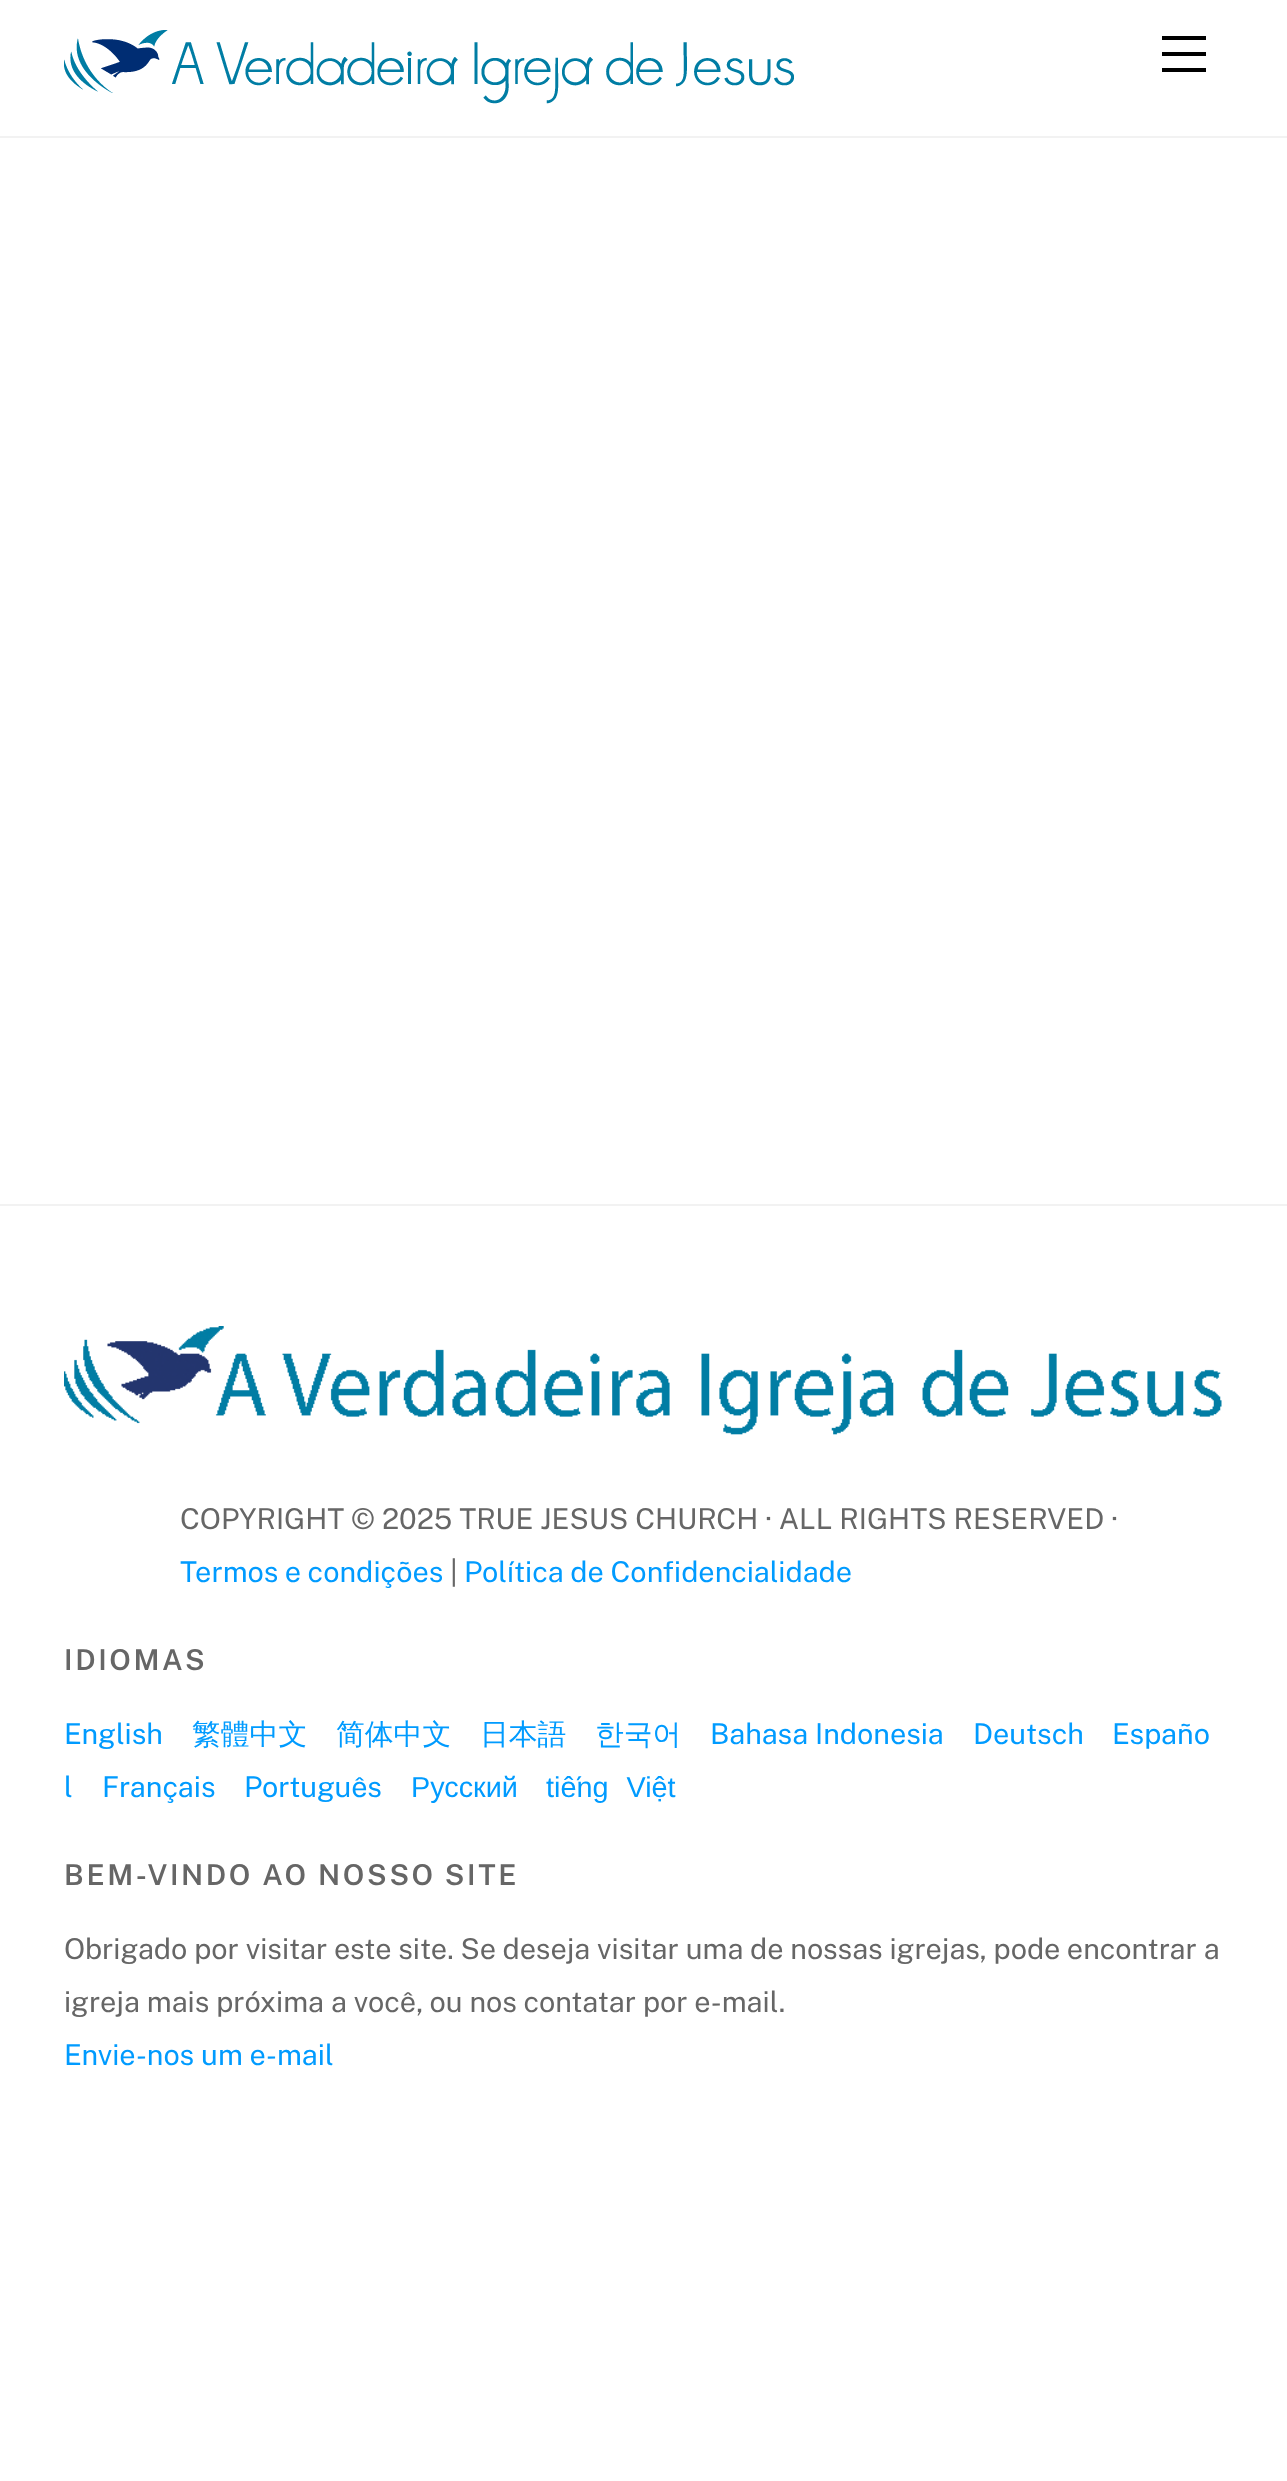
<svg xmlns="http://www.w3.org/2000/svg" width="1287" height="2481">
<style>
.a{font:28.8px Public Sans;fill:#666}
.b{font:28.8px Public Sans;fill:#009bff}
.c{font:600 28.8px Public Sans;letter-spacing:2.6px;fill:#666}
.d{font:500 28.8px WenQuanYi Zen Hei;fill:#009bff}
.e{font:28.8px Liberation Sans;fill:#009bff}
</style>
<rect width="100%" height="100%" fill="#fff"/>
<path fill="#f2f2f2" d="M0 136h1287v2H0z"/>
<image href="1.png" x="64" y="30" width="730" height="74"/>
<path fill="#000" d="M1162 68h44v4H1162z"/>
<path fill="#000" d="M1162 36h44v4H1162z"/>
<path fill="#000" d="M1162 52h44v4H1162z"/>
<path fill="#f2f2f2" d="M0 1204h1287v2H0z"/>
<image href="2.png" x="64" y="1326" width="1158" height="109"/>
<text class="a" x="180" y="1529">COPYRIGHT © 2025 TRUE JESUS CHURCH · ALL RIGHTS RESERVED ·</text>
<text class="b" x="180" y="1582">Termos e condições</text>
<text class="a" x="450" y="1582">|</text>
<text class="b" x="464" y="1582">Política de Confidencialidade</text>
<text class="c" x="64" y="1670">IDIOMAS</text>
<text class="b" x="64" y="1744">English</text>
<text class="d" x="192" y="1744">繁體中文</text>
<text class="d" x="336" y="1744">简体中文</text>
<text class="d" x="480" y="1744">日本語</text>
<text class="d" x="595" y="1744">한국어</text>
<text class="b" x="710" y="1744">Bahasa Indonesia</text>
<text class="b" x="973" y="1744">Deutsch</text>
<text class="b" x="1112" y="1744">Españo</text>
<text class="b" x="64" y="1797">l</text>
<text class="b" x="102" y="1797">Français</text>
<text class="b" x="244" y="1797">Português</text>
<text class="e" x="411" y="1797">Русский</text>
<text class="e" x="546" y="1797" word-spacing="10">tiếng Việt</text>
<text class="c" x="64" y="1885">BEM-VINDO AO NOSSO SITE</text>
<text class="a" x="64" y="1959">Obrigado por visitar este site. Se deseja visitar uma de nossas igrejas, pode encontrar a</text>
<text class="a" x="64" y="2012">igreja mais próxima a você, ou nos contatar por e-mail.</text>
<text class="b" x="64" y="2065">Envie-nos um e-mail</text>
</svg>
